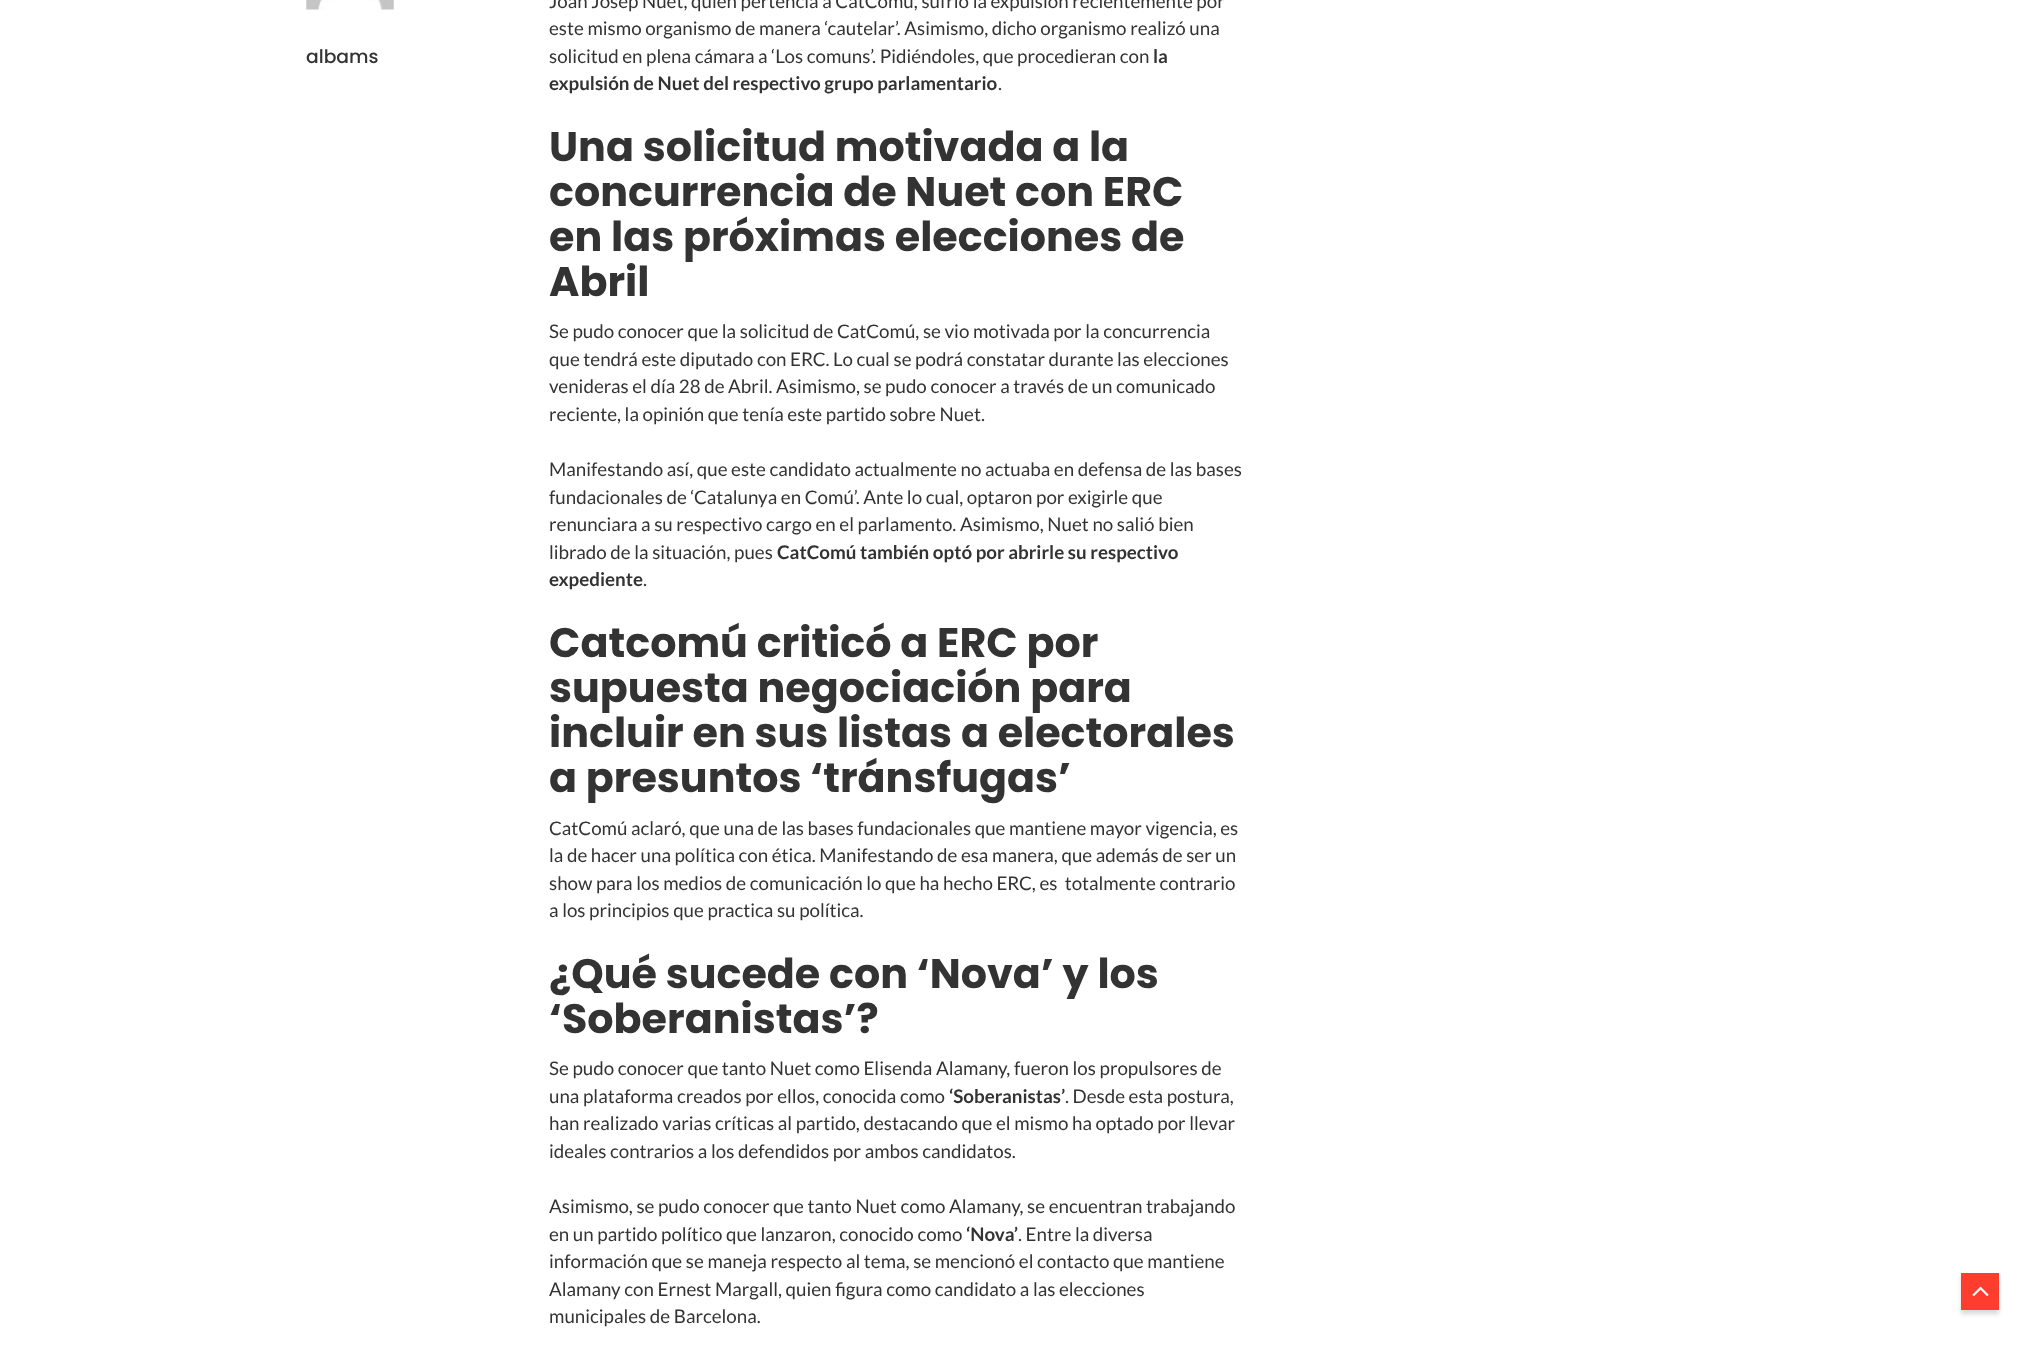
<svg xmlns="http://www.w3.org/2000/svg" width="2036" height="1347">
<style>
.a{font:500 18.75px Poppins;fill:#333}
.b{font:18.75px Lato;fill:#333}
.c{font:bold 18.75px Lato;fill:#333}
.d{font:bold 41.25px Poppins;fill:#333}
</style>
<rect width="100%" height="100%" fill="#fff"/>
<image href="1.png" x="306" y="0" width="88" height="10"/>
<path fill="#00000026" filter="blur(2px)" d="M1961 1276h38v38H1961z"/>
<path fill="#ff3d2e" d="M1961 1273h38v37H1961z"/>
<image href="2.png" x="1972" y="1286" width="17" height="11"/>
<text class="a" x="306" y="63">albams</text>
<text class="b" x="549" y="8">Joan Josep Nuet, quien pertencía a CatComú, sufrió la expulsión recientemente por</text>
<text class="b" x="549" y="35">este mismo organismo de manera ‘cautelar’. Asimismo, dicho organismo realizó una</text>
<text class="b" x="549" y="63">solicitud en plena cámara a ‘Los comuns’. Pidiéndoles, que procedieran con</text>
<text class="c" x="1153" y="63">la</text>
<text class="c" x="549" y="90">expulsión de Nuet del respectivo grupo parlamentario</text>
<text class="b" x="998" y="90">.</text>
<text class="d" x="549" y="161">Una solicitud motivada a la</text>
<text class="d" x="549" y="206">concurrencia de Nuet con ERC</text>
<text class="d" x="549" y="251">en las próximas elecciones de</text>
<text class="d" x="549" y="296">Abril</text>
<text class="b" x="549" y="338">Se pudo conocer que la solicitud de CatComú, se vio motivada por la concurrencia</text>
<text class="b" x="549" y="366">que tendrá este diputado con ERC. Lo cual se podrá constatar durante las elecciones</text>
<text class="b" x="549" y="393">venideras el día 28 de Abril. Asimismo, se pudo conocer a través de un comunicado</text>
<text class="b" x="549" y="421">reciente, la opinión que tenía este partido sobre Nuet.</text>
<text class="b" x="549" y="476">Manifestando así, que este candidato actualmente no actuaba en defensa de las bases</text>
<text class="b" x="549" y="504">fundacionales de ‘Catalunya en Comú’. Ante lo cual, optaron por exigirle que</text>
<text class="b" x="549" y="531">renunciara a su respectivo cargo en el parlamento. Asimismo, Nuet no salió bien</text>
<text class="b" x="549" y="559">librado de la situación, pues</text>
<text class="c" x="777" y="559">CatComú también optó por abrirle su respectivo</text>
<text class="c" x="549" y="586">expediente</text>
<text class="b" x="643" y="586">.</text>
<text class="d" x="549" y="657">Catcomú criticó a ERC por</text>
<text class="d" x="549" y="702">supuesta negociación para</text>
<text class="d" x="549" y="747">incluir en sus listas a electorales</text>
<text class="d" x="549" y="792">a presuntos ‘tránsfugas’</text>
<text class="b" x="549" y="835">CatComú aclaró, que una de las bases fundacionales que mantiene mayor vigencia, es</text>
<text class="b" x="549" y="862">la de hacer una política con ética. Manifestando de esa manera, que además de ser un</text>
<text class="b" xml:space="preserve" x="549" y="890">show para los medios de comunicación lo que ha hecho ERC, es  totalmente contrario</text>
<text class="b" x="549" y="917">a los principios que practica su política.</text>
<text class="d" x="549" y="988">¿Qué sucede con ‘Nova’ y los</text>
<text class="d" x="549" y="1033">‘Soberanistas’?</text>
<text class="b" x="549" y="1075">Se pudo conocer que tanto Nuet como Elisenda Alamany, fueron los propulsores de</text>
<text class="b" x="549" y="1103">una plataforma creados por ellos, conocida como</text>
<text class="c" x="949" y="1103">‘Soberanistas’</text>
<text class="b" x="1065" y="1103">. Desde esta postura,</text>
<text class="b" x="549" y="1130">han realizado varias críticas al partido, destacando que el mismo ha optado por llevar</text>
<text class="b" x="549" y="1158">ideales contrarios a los defendidos por ambos candidatos.</text>
<text class="b" x="549" y="1213">Asimismo, se pudo conocer que tanto Nuet como Alamany, se encuentran trabajando</text>
<text class="b" x="549" y="1241">en un partido político que lanzaron, conocido como</text>
<text class="c" x="966" y="1241">‘Nova’</text>
<text class="b" x="1018" y="1241">. Entre la diversa</text>
<text class="b" x="549" y="1268">información que se maneja respecto al tema, se mencionó el contacto que mantiene</text>
<text class="b" x="549" y="1296">Alamany con Ernest Margall, quien figura como candidato a las elecciones</text>
<text class="b" x="549" y="1323">municipales de Barcelona.</text>
</svg>
